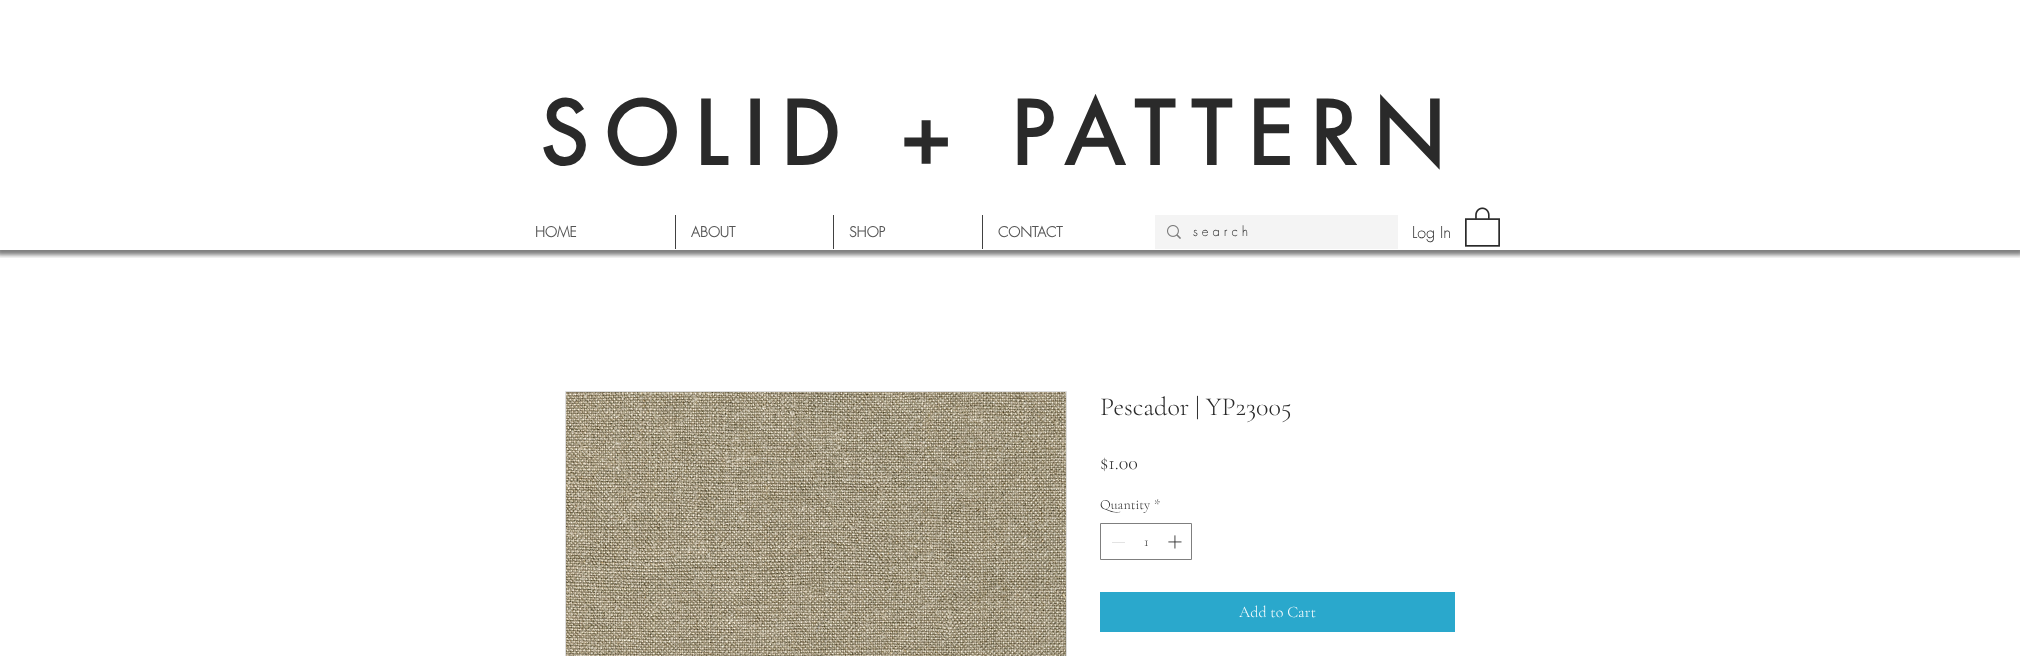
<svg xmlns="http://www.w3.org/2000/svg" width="2020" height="656">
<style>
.a{font:bold 85px futura;letter-spacing:17px;fill:#2a2a2a}
.b{font:bold 14px 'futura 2';fill:#555}
.c{font:300 13px futura;fill:#2a2a2a}
.d{font:300 16px futura;fill:#2a2a2a}
.e{font:300 26px Cormorant Garamond;fill:#2a2a2a}
.f{font:300 20px Cormorant Garamond;fill:#2a2a2a}
.g{font:300 14px Cormorant Garamond;fill:#2a2a2a}
.h{font:300 16px Cormorant Garamond;fill:#fff}
</style>
<defs>
<clipPath id="clip1"><path d="M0 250h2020v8H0z"/></clipPath>
</defs>
<rect width="100%" height="100%" fill="#fff"/>
<g clip-path="url(#clip1)">
<path fill="#00000080" filter="blur(2px)" d="M-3 -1h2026v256H-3z"/>
</g>
<path fill="#414141" d="M675 215h1v34H675z"/>
<path fill="#414141" d="M833 215h1v34H833z"/>
<path fill="#414141" d="M982 215h1v34H982z"/>
<path fill="#f4f4f4" d="M1155 215h243v34H1155z"/>
<image href="1.png" x="1167" y="225" width="14" height="14"/>
<image href="2.png" x="1465" y="207" width="35" height="40"/>
<path fill="none" stroke="#ddd" d="M565.5 391.5h501v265H565.5z"/>
<image href="3.png" x="566" y="392" width="500" height="264"/>
<path fill="none" stroke="#7f7f7f" d="M1100.5 523.5h91v36H1100.5z"/>
<path fill="#e3e3e3" d="M1112 542h13v1H1112z"/>
<image href="4.png" x="1168" y="535" width="14" height="14"/>
<path fill="#2aa8cc" d="M1100 592h355v40H1100z"/>
<text class="a" x="540" y="165">SOLID + PATTERN</text>
<text class="b" x="535" y="237">HOME</text>
<text class="b" x="691" y="237">ABOUT</text>
<text class="b" x="849" y="237">SHOP</text>
<text class="b" x="998" y="237">CONTACT</text>
<text class="c" x="1193" y="236">s e a r c h</text>
<text class="d" x="1412" y="238">Log In</text>
<text class="e" x="1100" y="415">Pescador | YP23005</text>
<text class="f" x="1100" y="469">$1.00</text>
<text class="g" x="1100" y="509">Quantity</text>
<text class="g" x="1154" y="509">*</text>
<text class="g" x="1144" y="546">1</text>
<text class="h" x="1239" y="617">Add to Cart</text>
</svg>
